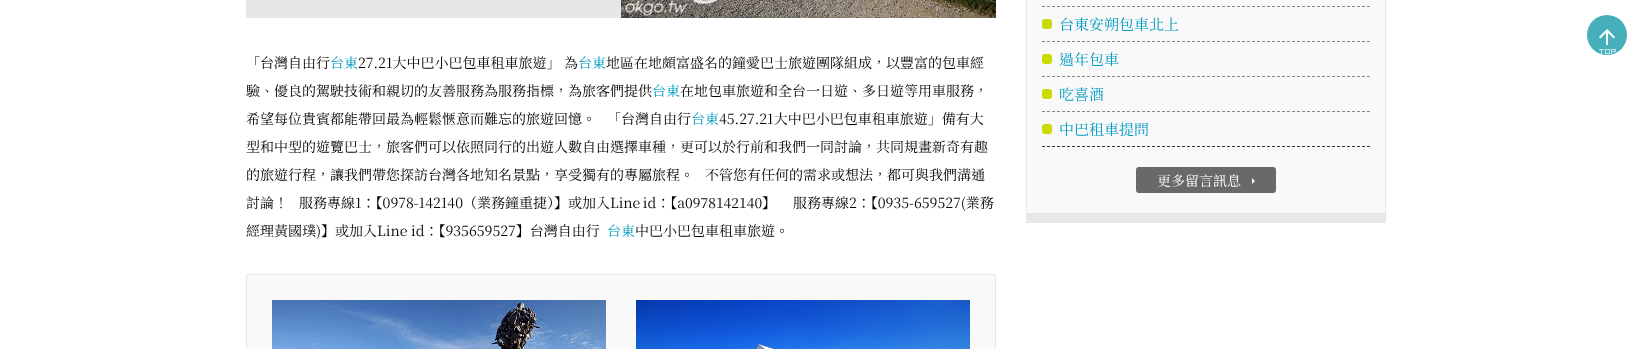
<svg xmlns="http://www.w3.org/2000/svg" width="1632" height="349">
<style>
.a{font:14px Noto Serif TC;fill:#000}
.b{font:14px Noto Serif TC;fill:#009ac1}
.c{font:15px Noto Serif TC;fill:#009ac1}
.d{font:14px Noto Serif TC;fill:#fff}
</style>
<rect width="100%" height="100%" fill="#fff"/>
<path fill="#e7e7e7" d="M246 0h375v18H246z"/>
<image href="1.png" x="621" y="0" width="375" height="18"/>
<path fill="#f9f9f9" stroke="#e7e7e7" d="M246.5 274.5h749v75H246.5z"/>
<image href="2.png" x="272" y="300" width="334" height="49"/>
<image href="3.png" x="636" y="300" width="334" height="49"/>
<path fill="#f9f9f9" d="M1027 0h358v213H1027z"/>
<path fill="#e7e7e7" d="M1385 0h1v213H1385z"/>
<path fill="#e7e7e7" d="M1027 213h359v10H1027z"/>
<path fill="#e7e7e7" d="M1026 0h1v223H1026z"/>
<path fill="none" stroke="#888" stroke-dasharray="3 2" d="M1042 6.5h328"/>
<rect fill="#cbda00" x="1042" y="19" width="10" height="10" rx="3"/>
<path fill="none" stroke="#888" stroke-dasharray="3 2" d="M1042 41.5h328"/>
<rect fill="#cbda00" x="1042" y="54" width="10" height="10" rx="3"/>
<path fill="none" stroke="#888" stroke-dasharray="3 2" d="M1042 76.5h328"/>
<rect fill="#cbda00" x="1042" y="89" width="10" height="10" rx="3"/>
<path fill="none" stroke="#888" stroke-dasharray="3 2" d="M1042 111.5h328"/>
<rect fill="#cbda00" x="1042" y="124" width="10" height="10" rx="3"/>
<path fill="none" stroke="#333" stroke-dasharray="3 2" d="M1042 146.5h328"/>
<rect fill="#696969" x="1136" y="167" width="140" height="26" rx="3"/>
<path fill="#fff" d="M1252 184v-6l3 3z"/>
<circle fill="#47afbc" cx="1607" cy="35" r="20"/>
<image href="4.png" x="1599" y="29" width="16" height="16"/>
<image href="5.png" x="1599" y="49" width="17" height="5"/>
<text class="a" x="246" y="68">「台灣自由行</text>
<text class="b" x="330" y="68">台東</text>
<text class="a" x="358" y="68">27.21大中巴小巴包車租車旅遊」 為</text>
<text class="b" x="578" y="68">台東</text>
<text class="a" x="606" y="68">地區在地頗富盛名的鐘愛巴士旅遊團隊組成，以豐富的包車經</text>
<text class="a" x="246" y="96">驗、優良的駕駛技術和親切的友善服務為服務指標，為旅客們提供</text>
<text class="b" x="652" y="96">台東</text>
<text class="a" x="680" y="96">在地包車旅遊和全台一日遊、多日遊等用車服務，</text>
<text class="a" x="246" y="124">希望每位貴賓都能帶回最為輕鬆愜意而難忘的旅遊回憶。</text>
<text class="a" x="607" y="124">「台灣自由行</text>
<text class="b" x="691" y="124">台東</text>
<text class="a" x="719" y="124">45.27.21大中巴小巴包車租車旅遊」備有大</text>
<text class="a" x="246" y="152">型和中型的遊覽巴士，旅客們可以依照同行的出遊人數自由選擇車種，更可以於行前和我們一同討論，共同規畫新奇有趣</text>
<text class="a" x="246" y="180">的旅遊行程，讓我們帶您探訪台灣各地知名景點，享受獨有的專屬旅程。</text>
<text class="a" x="705" y="180">不管您有任何的需求或想法，都可與我們溝通</text>
<text class="a" x="246" y="208">討論！</text>
<text class="a" x="299" y="208" word-spacing="-1">服務專線1：【0978-142140（業務鐘重捷）】或加入Line id：【a0978142140】</text>
<text class="a" x="793" y="208">服務專線2：【0935-659527(業務</text>
<text class="a" x="246" y="236">經理黃國璞)】或加入Line id：【935659527】台灣自由行</text>
<text class="b" x="607" y="236">台東</text>
<text class="a" x="635" y="236">中巴小巴包車租車旅遊。</text>
<text class="c" x="1059" y="30">台東安朔包車北上</text>
<text class="c" x="1059" y="65">過年包車</text>
<text class="c" x="1059" y="100">吃喜酒</text>
<text class="c" x="1059" y="135">中巴租車提問</text>
<text class="d" x="1157" y="186">更多留言訊息</text>
</svg>
